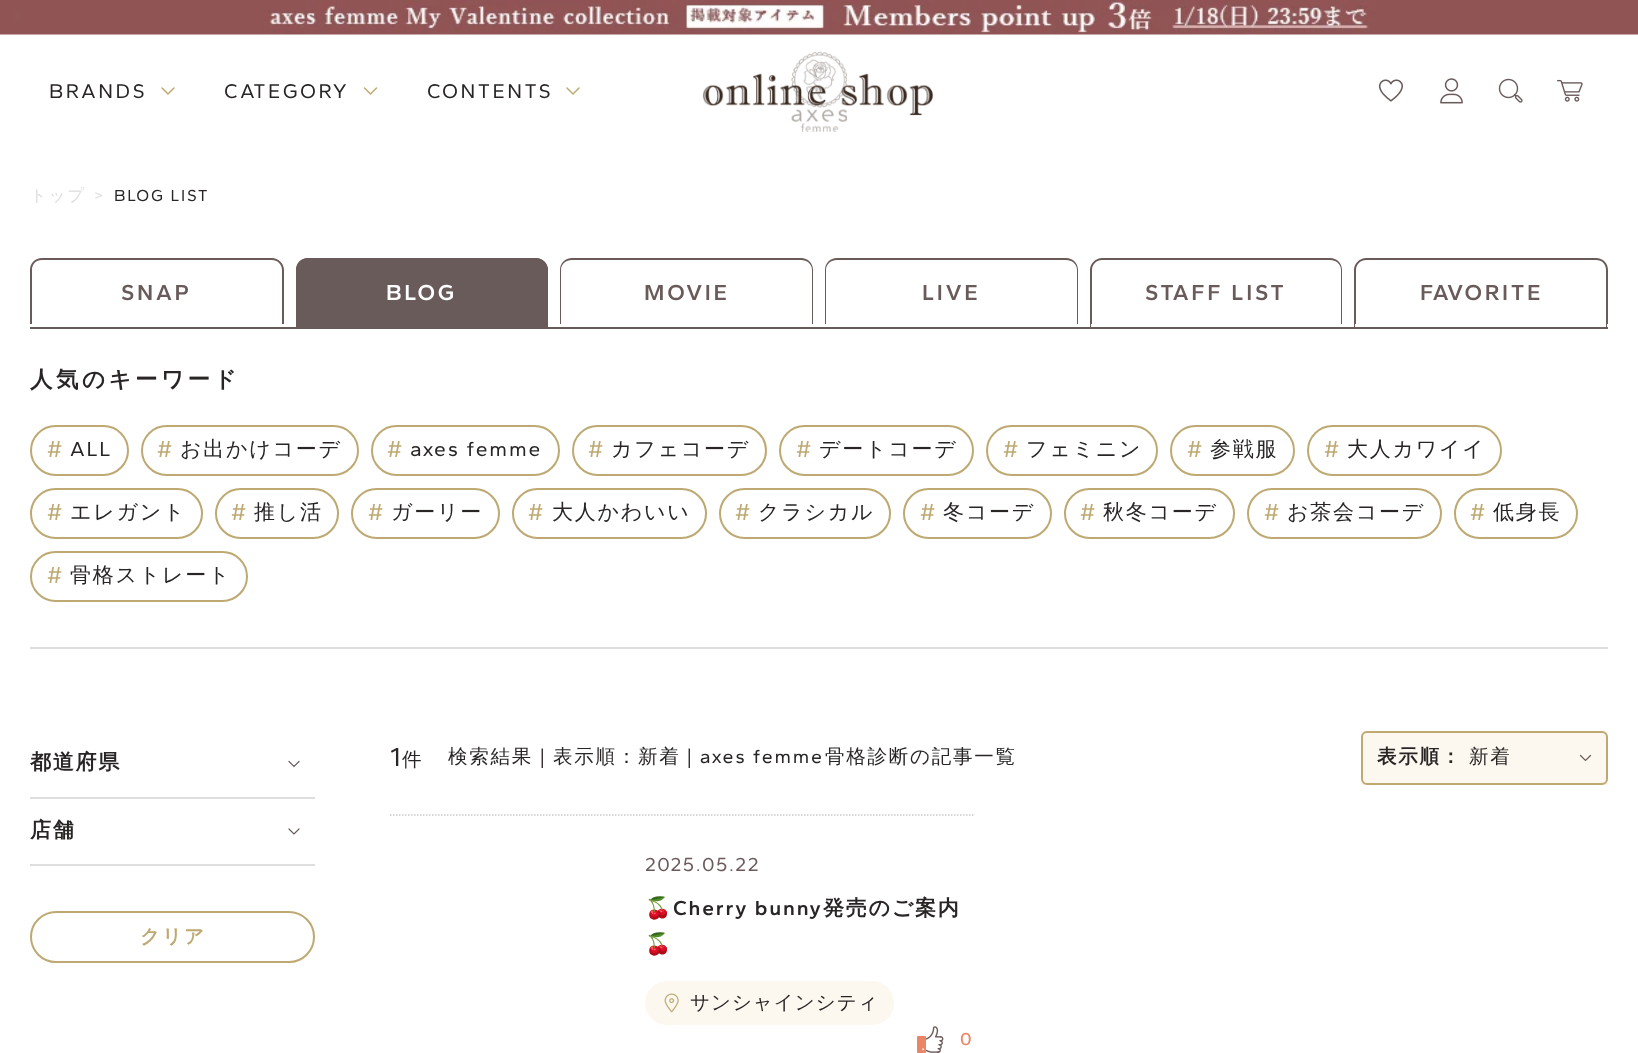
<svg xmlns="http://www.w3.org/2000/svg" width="1638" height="1053">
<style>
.a{font:20.5px Gantari;letter-spacing:2.5px;fill:#292525}
.b{font:500 16.5px WenQuanYi Zen Hei;letter-spacing:1.75px;fill:#dedede}
.c{font:16.5px Gantari;letter-spacing:1.75px;fill:#dedede}
.d{font:16.5px Gantari;letter-spacing:1.75px;fill:#292525}
.e{font:600 22.5px Gantari;letter-spacing:2.75px;fill:#6a5b5b}
.f{font:600 22.5px Gantari;letter-spacing:2.75px;fill:#fff}
.g{font:bold 22.5px WenQuanYi Zen Hei;letter-spacing:3.5px;fill:#292525}
.h{font:24px Gantari;letter-spacing:1.75px;fill:#bea972}
.i{font:21px Gantari;letter-spacing:1.75px;fill:#292525}
.j{font:500 21px WenQuanYi Zen Hei;letter-spacing:1.75px;fill:#292525}
.k{font:bold 21px WenQuanYi Zen Hei;letter-spacing:1.75px;fill:#292525}
.l{font:bold 19.5px WenQuanYi Zen Hei;letter-spacing:2px;fill:#bea972}
.m{font:27px Gantari;letter-spacing:1.75px;fill:#292525}
.n{font:500 19.5px WenQuanYi Zen Hei;letter-spacing:1.75px;fill:#292525}
.o{font:19.5px Gantari;letter-spacing:1.75px;fill:#292525}
.p{font:bold 19.5px WenQuanYi Zen Hei;letter-spacing:1.75px;fill:#292525}
.q{font:19.5px Gantari;letter-spacing:1.5px;fill:#6a5b5b}
.r{font:bold 21px Noto Color Emoji;letter-spacing:1.75px;fill:#292525}
.s{font:600 21px Gantari;letter-spacing:1.75px;fill:#292525}
.t{font:500 19.5px WenQuanYi Zen Hei;letter-spacing:1px;fill:#292525}
.u{font:500 18px Gantari;letter-spacing:2px;fill:#eb8567}
</style>
<rect width="100%" height="100%" fill="#fff"/>
<image href="1.png" x="0" y="0" width="1638" height="35"/>
<path fill="none" stroke="#bea972" stroke-width="1.5" stroke-linecap="round" d="M174 88l-6 6l-6-6"/>
<path fill="none" stroke="#bea972" stroke-width="1.5" stroke-linecap="round" d="M376.5 88l-6 6l-6-6"/>
<path fill="none" stroke="#bea972" stroke-width="1.5" stroke-linecap="round" d="M579 88l-6 6l-6-6"/>
<image href="2.png" x="702" y="51" width="232" height="81"/>
<image href="3.png" x="1378" y="79" width="25" height="23"/>
<image href="4.png" x="1440" y="78" width="23" height="26"/>
<image href="5.png" x="1498" y="78" width="25" height="25"/>
<image href="6.png" x="1557" y="79" width="26" height="23"/>
<path fill="#6a5b5b" d="M30 327h1578v2H30z"/>
<path fill="#6a5b5b" fill-rule="evenodd" d="M42 258h230c6 0 12 5 12 12v57h-254v-57c0-7 5-12 12-12zm0 2h230c5 0 10 4 10 10v57h-250v-57c0-6 4-10 10-10z"/>
<path fill="#fff" d="M30 324h2v3H30z"/>
<path fill="#fff" d="M282 324h2v3H282z"/>
<path fill="#6a5b5b" d="M308 258h228c6.5 0 12 5.5 12 12v57h-252v-57c0-6.5 5.5-12 12-12z"/>
<path fill="#6a5b5b" fill-rule="evenodd" d="M308 258h228c6 0 12 5 12 12v57h-252v-57c0-7 5-12 12-12zm0 2h228c5 0 10 4 10 10v57h-249v-57c0-6 5-10 11-10z"/>
<path fill="#6a5b5b" fill-rule="evenodd" d="M572 258h229c7 0 12 5 12 12v57h-253v-57c0-7 5-12 12-12zm0 2h229c6 0 11 4 11 10v57h-251v-57c0-6 5-10 11-10z"/>
<path fill="#fff" d="M560 324h1v3H560z"/>
<path fill="#fff" d="M812 324h1v3H812z"/>
<path fill="#6a5b5b" fill-rule="evenodd" d="M837 258h229c7 0 12 5 12 12v57h-253v-57c0-7 5-12 12-12zm0 2h229c6 0 11 4 11 10v57h-251v-57c0-6 5-10 11-10z"/>
<path fill="#fff" d="M825 324h1v3H825z"/>
<path fill="#fff" d="M1077 324h1v3H1077z"/>
<path fill="#6a5b5b" fill-rule="evenodd" d="M1102 258h228c7 0 12 5 12 12v57h-252v-57c0-7 6-12 12-12zm0 2h228c6 0 11 4 11 10v57h-249v-57c0-6 5-10 10-10z"/>
<path fill="#fff" d="M1091 324h1v3H1091z"/>
<path fill="#fff" d="M1341 324h1v3H1341z"/>
<path fill="#6a5b5b" fill-rule="evenodd" d="M1366 258h230c7 0 12 5 12 12v57h-254v-57c0-7 6-12 12-12zm0 2h230c6 0 10 4 10 10v57h-250v-57c0-6 5-10 10-10z"/>
<path fill="#fff" d="M1355 324h1v3H1355z"/>
<path fill="#fff" d="M1607 324h1v3H1607z"/>
<path fill="#dedede" d="M30 647h1578v2H30z"/>
<rect fill="none" stroke="#bea972" stroke-width="2" x="31" y="426" width="97" height="49" rx="24.5"/>
<rect fill="none" stroke="#bea972" stroke-width="2" x="142" y="426" width="216" height="49" rx="24.5"/>
<rect fill="none" stroke="#bea972" stroke-width="2" x="372" y="426" width="187" height="49" rx="24.5"/>
<rect fill="none" stroke="#bea972" stroke-width="2" x="573" y="426" width="193" height="49" rx="24.5"/>
<rect fill="none" stroke="#bea972" stroke-width="2" x="780" y="426" width="193" height="49" rx="24.5"/>
<rect fill="none" stroke="#bea972" stroke-width="2" x="987" y="426" width="170" height="49" rx="24.5"/>
<rect fill="none" stroke="#bea972" stroke-width="2" x="1171" y="426" width="123" height="49" rx="24.5"/>
<rect fill="none" stroke="#bea972" stroke-width="2" x="1308" y="426" width="193" height="49" rx="24.5"/>
<rect fill="none" stroke="#bea972" stroke-width="2" x="31" y="489" width="171" height="49" rx="24.5"/>
<rect fill="none" stroke="#bea972" stroke-width="2" x="216" y="489" width="122" height="49" rx="24.5"/>
<rect fill="none" stroke="#bea972" stroke-width="2" x="352" y="489" width="147" height="49" rx="24.5"/>
<rect fill="none" stroke="#bea972" stroke-width="2" x="513" y="489" width="193" height="49" rx="24.5"/>
<rect fill="none" stroke="#bea972" stroke-width="2" x="720" y="489" width="170" height="49" rx="24.5"/>
<rect fill="none" stroke="#bea972" stroke-width="2" x="904" y="489" width="147" height="49" rx="24.5"/>
<rect fill="none" stroke="#bea972" stroke-width="2" x="1065" y="489" width="169" height="49" rx="24.5"/>
<rect fill="none" stroke="#bea972" stroke-width="2" x="1248" y="489" width="193" height="49" rx="24.5"/>
<rect fill="none" stroke="#bea972" stroke-width="2" x="1455" y="489" width="122" height="49" rx="24.5"/>
<rect fill="none" stroke="#bea972" stroke-width="2" x="31" y="552" width="216" height="49" rx="24.5"/>
<path fill="#dedede" d="M30 797h285v2H30z"/>
<path fill="none" stroke="#6a5b5b" stroke-width="1.2" stroke-linecap="round" d="M299 761.5l-5 5l-5-5"/>
<path fill="#dedede" d="M30 864h285v2H30z"/>
<path fill="none" stroke="#6a5b5b" stroke-width="1.2" stroke-linecap="round" d="M299 829l-5 5l-5-5"/>
<rect fill="none" stroke="#bea972" stroke-width="2" x="31" y="912" width="283" height="50" rx="25"/>
<path fill="#fcf8f0" d="M1361 731h247v54H1361z"/>
<rect fill="none" stroke="#bea972" stroke-width="2" x="1362" y="732" width="245" height="52" rx="5"/>
<path fill="none" stroke="#6a5b5b" stroke-width="1.2" stroke-linecap="round" d="M1590.5 755.5l-5 5l-5-5"/>
<path fill="none" stroke="#cbc8c8" stroke-width="1.5" stroke-dasharray="1.5 1.5" d="M390 815h583.5"/>
<rect fill="#fcf8f0" x="645" y="981" width="249" height="44" rx="22"/>
<image href="7.png" x="664" y="993" width="15" height="20"/>
<image href="8.png" x="917" y="1026" width="27" height="27"/>
<text class="a" x="49" y="98">BRANDS</text>
<text class="a" x="224" y="98">CATEGORY</text>
<text class="a" x="427" y="98">CONTENTS</text>
<text class="b" x="30" y="201">トップ</text>
<text class="c" x="94" y="201">&gt;</text>
<text class="d" x="114" y="201">BLOG LIST</text>
<text class="e" x="121" y="300">SNAP</text>
<text class="f" x="386" y="300">BLOG</text>
<text class="e" x="644" y="300">MOVIE</text>
<text class="e" x="922" y="300">LIVE</text>
<text class="e" x="1145" y="300">STAFF LIST</text>
<text class="e" x="1420" y="300">FAVORITE</text>
<text class="g" x="30" y="387">人気のキーワード</text>
<text class="h" x="47" y="457">#</text>
<text class="i" x="70" y="456">ALL</text>
<text class="h" x="157" y="457">#</text>
<text class="j" x="180" y="456">お出かけコーデ</text>
<text class="h" x="387" y="457">#</text>
<text class="i" x="410" y="456">axes femme</text>
<text class="h" x="588" y="457">#</text>
<text class="j" x="611" y="456">カフェコーデ</text>
<text class="h" x="796" y="457">#</text>
<text class="j" x="819" y="456">デートコーデ</text>
<text class="h" x="1003" y="457">#</text>
<text class="j" x="1026" y="456">フェミニン</text>
<text class="h" x="1187" y="457">#</text>
<text class="j" x="1210" y="456">参戦服</text>
<text class="h" x="1324" y="457">#</text>
<text class="j" x="1347" y="456">大人カワイイ</text>
<text class="h" x="47" y="520">#</text>
<text class="j" x="70" y="519">エレガント</text>
<text class="h" x="231" y="520">#</text>
<text class="j" x="254" y="519">推し活</text>
<text class="h" x="368" y="520">#</text>
<text class="j" x="391" y="519">ガーリー</text>
<text class="h" x="528" y="520">#</text>
<text class="j" x="552" y="519">大人かわいい</text>
<text class="h" x="735" y="520">#</text>
<text class="j" x="758" y="519">クラシカル</text>
<text class="h" x="920" y="520">#</text>
<text class="j" x="943" y="519">冬コーデ</text>
<text class="h" x="1080" y="520">#</text>
<text class="j" x="1103" y="519">秋冬コーデ</text>
<text class="h" x="1264" y="520">#</text>
<text class="j" x="1287" y="519">お茶会コーデ</text>
<text class="h" x="1470" y="520">#</text>
<text class="j" x="1493" y="519">低身長</text>
<text class="h" x="47" y="583">#</text>
<text class="j" x="70" y="582">骨格ストレート</text>
<text class="k" x="30" y="769">都道府県</text>
<text class="k" x="30" y="837">店舗</text>
<text class="l" x="140" y="943">クリア</text>
<text class="m" x="390" y="766">1</text>
<text class="n" x="402" y="766">件</text>
<text class="n" x="448" y="763">検索結果</text>
<text class="o" x="540" y="763">|</text>
<text class="n" x="553" y="763">表示順：新着</text>
<text class="o" x="687" y="763">| axes femme</text>
<text class="n" x="825" y="763">骨格診断の記事一覧</text>
<text class="p" x="1377" y="763">表示順：</text>
<text class="n" x="1469" y="763">新着</text>
<text class="q" x="645" y="871">2025.05.22</text>
<text class="r" x="645" y="915">🍒</text>
<text class="s" x="673" y="915">Cherry bunny</text>
<text class="k" x="823" y="915">発売のご案内</text>
<text class="r" x="645" y="951">🍒</text>
<text class="t" x="690" y="1009">サンシャインシティ</text>
<text class="u" x="960" y="1045">0</text>
</svg>
